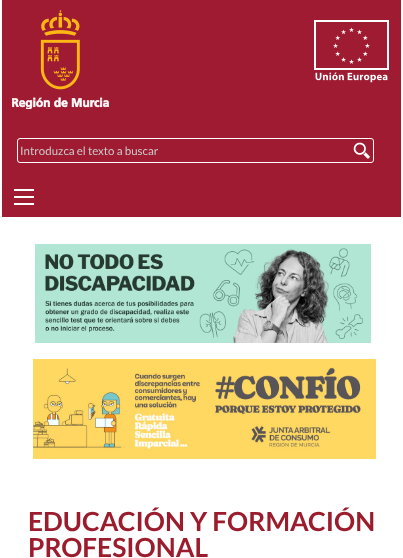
<svg xmlns="http://www.w3.org/2000/svg" width="403" height="558">
<style>
.a{font:11.5px Lato;fill:#cacaca}
.b{font:bold 26.4px Lato;fill:#9b1d2d}
</style>
<rect width="100%" height="100%" fill="#fff"/>
<path fill="#9e1b32" d="M2 0h399v217H2z"/>
<image href="1.png" x="12" y="10" width="97" height="99"/>
<image href="2.png" x="314" y="20" width="75" height="63"/>
<rect fill="none" stroke="#fff" x="17.5" y="138.5" width="356" height="24" rx="2.5"/>
<image href="3.png" x="353" y="142" width="17" height="17"/>
<path fill="#fefefe" d="M14 203h20v2H14z"/>
<path fill="#fefefe" d="M14 196h20v2H14z"/>
<path fill="#fefefe" d="M14 189h20v2H14z"/>
<image href="4.png" x="35" y="244" width="336" height="99"/>
<image href="5.png" x="33" y="359" width="343" height="100"/>
<text class="a" x="20" y="155">Introduzca el texto a buscar</text>
<text class="b" x="28" y="531">EDUCACIÓN Y FORMACIÓN</text>
<text class="b" x="28" y="557">PROFESIONAL</text>
</svg>
